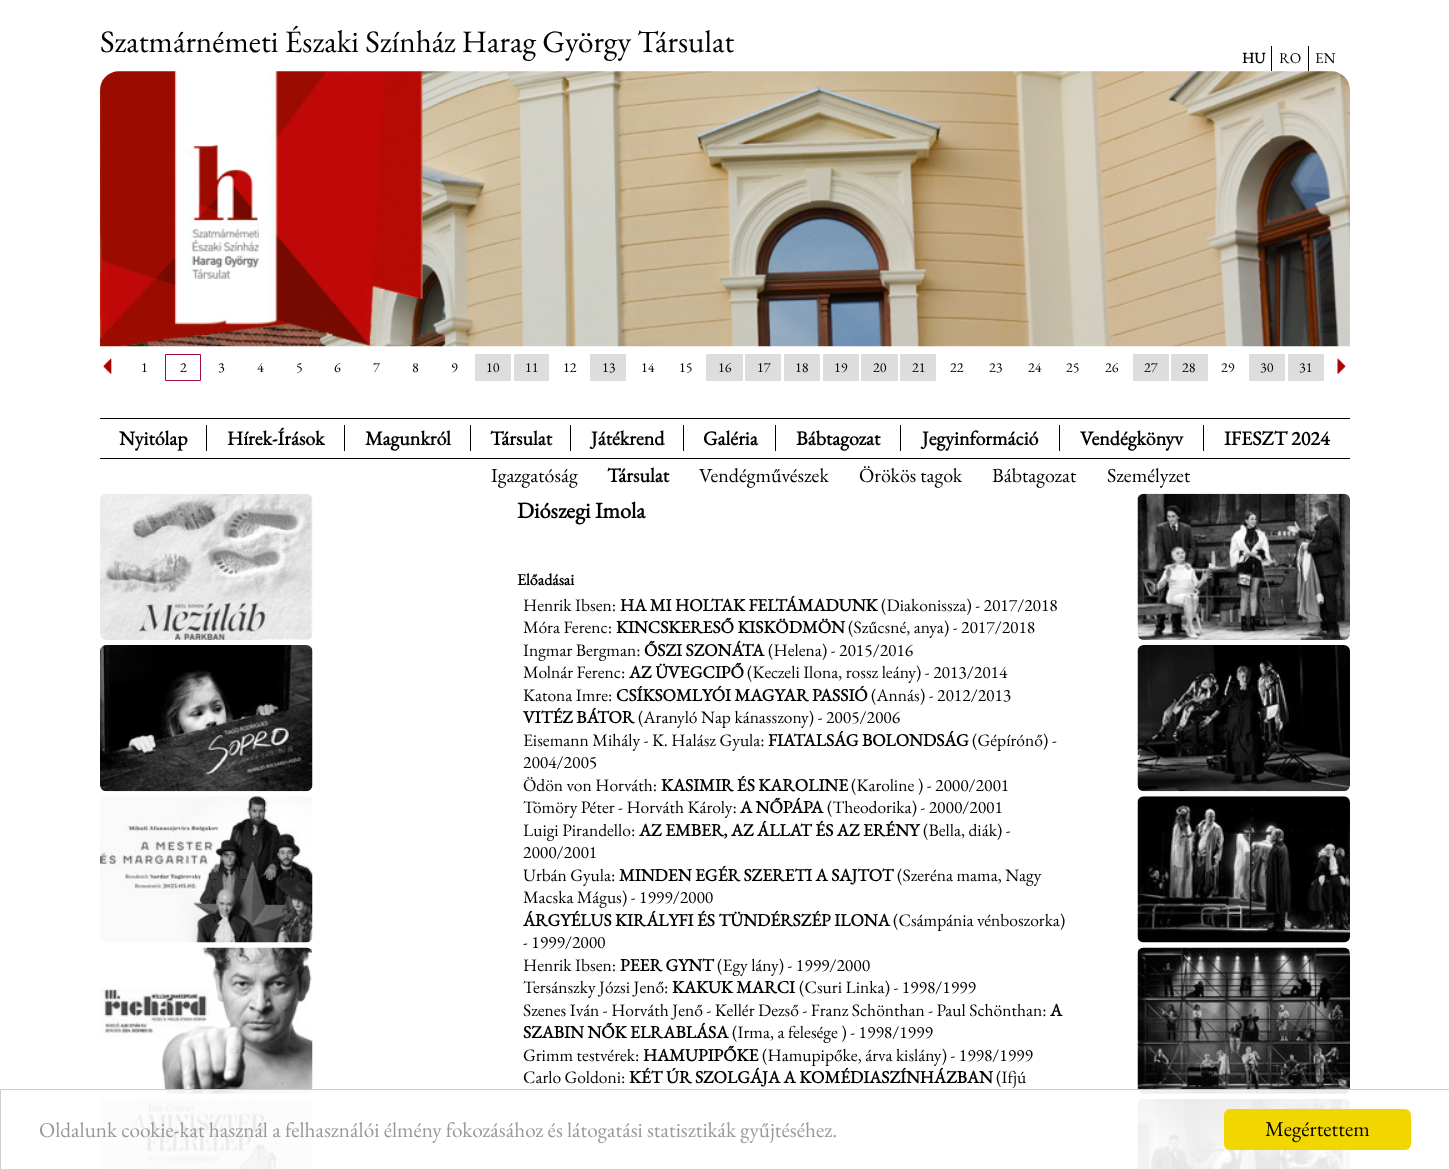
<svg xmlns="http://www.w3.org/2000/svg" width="1449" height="1169">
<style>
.a{font:31.25px EB Garamond;fill:#000}
.b{font:bold 15px EB Garamond;fill:#000}
.c{font:15px EB Garamond;fill:#000}
.d{font:14px EB Garamond;fill:#000}
.e{font:bold 20px EB Garamond;fill:#000}
.f{font:20px EB Garamond;fill:#000}
.g{font:bold 22.5px EB Garamond;fill:#000}
.h{font:bold 16px EB Garamond;fill:#000}
.i{font:17.5px EB Garamond;fill:#000}
.j{font:bold 17.5px EB Garamond;fill:#000}
.k{font:21.25px EB Garamond;fill:#999}
.l{font:21.25px EB Garamond;fill:#000}
</style>
<rect width="100%" height="100%" fill="#fff"/>
<path fill="#000" d="M1271 46h1v25H1271z"/>
<path fill="#000" d="M1308 46h1v25H1308z"/>
<image href="1.png" x="100" y="71" width="1250" height="276"/>
<image href="2.png" x="103" y="358" width="9" height="16"/>
<path fill="none" stroke="#a50e37" d="M165.5 354.5h35v26H165.5z"/>
<path fill="#ddd" d="M475 354h36v27H475z"/>
<path fill="#ddd" d="M514 354h35v27H514z"/>
<path fill="#ddd" d="M590 354h36v27H590z"/>
<path fill="#ddd" d="M706 354h37v27H706z"/>
<path fill="#ddd" d="M745 354h36v27H745z"/>
<path fill="#ddd" d="M784 354h36v27H784z"/>
<path fill="#ddd" d="M823 354h36v27H823z"/>
<path fill="#ddd" d="M861 354h37v27H861z"/>
<path fill="#ddd" d="M900 354h36v27H900z"/>
<path fill="#ddd" d="M1133 354h36v27H1133z"/>
<path fill="#ddd" d="M1171 354h37v27H1171z"/>
<path fill="#ddd" d="M1249 354h36v27H1249z"/>
<path fill="#ddd" d="M1288 354h36v27H1288z"/>
<image href="3.png" x="1337" y="358" width="9" height="16"/>
<path fill="#000" d="M100 418h1250v1H100z"/>
<path fill="#000" d="M100 458h1250v1H100z"/>
<path fill="#000" d="M206 425h1v26H206z"/>
<path fill="#000" d="M344 425h1v26H344z"/>
<path fill="#000" d="M470 425h1v26H470z"/>
<path fill="#000" d="M570 425h1v26H570z"/>
<path fill="#000" d="M683 425h1v26H683z"/>
<path fill="#000" d="M775 425h1v26H775z"/>
<path fill="#000" d="M900 425h1v26H900z"/>
<path fill="#000" d="M1059 425h1v26H1059z"/>
<path fill="#000" d="M1203 425h1v26H1203z"/>
<image href="4.png" x="100" y="494" width="213" height="146"/>
<image href="5.png" x="100" y="645" width="213" height="147"/>
<image href="6.png" x="100" y="796" width="213" height="147"/>
<image href="7.png" x="100" y="947" width="213" height="147"/>
<image href="8.png" x="100" y="1099" width="213" height="70"/>
<image href="9.png" x="1137" y="493" width="213" height="147"/>
<image href="10.png" x="1137" y="645" width="213" height="147"/>
<image href="11.png" x="1137" y="796" width="213" height="147"/>
<image href="12.png" x="1137" y="947" width="213" height="147"/>
<image href="13.png" x="1137" y="1098" width="213" height="71"/>
<path fill="#ffffffe6" d="M100 1090h1250v79H100z"/>
<path fill="none" stroke="#ccc" d="M0.5 1089.5h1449v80H0.5z"/>
<rect fill="#f1d600" x="1224" y="1109" width="187" height="41" rx="6"/>
<text class="a" x="100" y="52">Szatmárnémeti Északi Színház Harag György Társulat</text>
<text class="b" x="1242" y="63">HU</text>
<text class="c" x="1279" y="63">RO</text>
<text class="c" x="1315" y="63">EN</text>
<text class="d" x="141" y="372">1</text>
<text class="d" x="180" y="372">2</text>
<text class="d" x="218" y="372">3</text>
<text class="d" x="257" y="372">4</text>
<text class="d" x="296" y="372">5</text>
<text class="d" x="334" y="372">6</text>
<text class="d" x="373" y="372">7</text>
<text class="d" x="412" y="372">8</text>
<text class="d" x="451" y="372">9</text>
<text class="d" x="486" y="372">10</text>
<text class="d" x="525" y="372">11</text>
<text class="d" x="563" y="372">12</text>
<text class="d" x="602" y="372">13</text>
<text class="d" x="641" y="372">14</text>
<text class="d" x="679" y="372">15</text>
<text class="d" x="718" y="372">16</text>
<text class="d" x="757" y="372">17</text>
<text class="d" x="795" y="372">18</text>
<text class="d" x="834" y="372">19</text>
<text class="d" x="873" y="372">20</text>
<text class="d" x="912" y="372">21</text>
<text class="d" x="950" y="372">22</text>
<text class="d" x="989" y="372">23</text>
<text class="d" x="1028" y="372">24</text>
<text class="d" x="1066" y="372">25</text>
<text class="d" x="1105" y="372">26</text>
<text class="d" x="1144" y="372">27</text>
<text class="d" x="1182" y="372">28</text>
<text class="d" x="1221" y="372">29</text>
<text class="d" x="1260" y="372">30</text>
<text class="d" x="1299" y="372">31</text>
<text class="e" x="119" y="445">Nyitólap</text>
<text class="e" x="227" y="445">Hírek-Írások</text>
<text class="e" x="365" y="445">Magunkról</text>
<text class="e" x="490" y="445">Társulat</text>
<text class="f" x="491" y="482">Igazgatóság</text>
<text class="e" x="607" y="482">Társulat</text>
<text class="f" x="699" y="482">Vendégművészek</text>
<text class="f" x="859" y="482">Örökös tagok</text>
<text class="f" x="992" y="482">Bábtagozat</text>
<text class="f" x="1107" y="482">Személyzet</text>
<text class="e" x="591" y="445">Játékrend</text>
<text class="e" x="703" y="445">Galéria</text>
<text class="e" x="796" y="445">Bábtagozat</text>
<text class="e" x="922" y="445">Jegyinformáció</text>
<text class="e" x="1080" y="445">Vendégkönyv</text>
<text class="e" x="1224" y="445">IFESZT 2024</text>
<text class="g" x="517" y="518">Diószegi Imola</text>
<text class="h" x="517" y="585">Előadásai</text>
<text class="i" x="523" y="611">Henrik Ibsen:</text>
<text class="j" x="620" y="611">HA MI HOLTAK FELTÁMADUNK</text>
<text class="i" x="881" y="611">(Diakonissza) - 2017/2018</text>
<text class="i" x="523" y="633">Móra Ferenc:</text>
<text class="j" x="616" y="633">KINCSKERESŐ KISKÖDMÖN</text>
<text class="i" x="848" y="633">(Szűcsné, anya) - 2017/2018</text>
<text class="i" x="523" y="656">Ingmar Bergman:</text>
<text class="j" x="644" y="656">ŐSZI SZONÁTA</text>
<text class="i" x="768" y="656">(Helena) - 2015/2016</text>
<text class="i" x="523" y="678">Molnár Ferenc:</text>
<text class="j" x="629" y="678">AZ ÜVEGCIPŐ</text>
<text class="i" x="747" y="678">(Keczeli Ilona, rossz leány) - 2013/2014</text>
<text class="i" x="523" y="701">Katona Imre:</text>
<text class="j" x="616" y="701">CSÍKSOMLYÓI MAGYAR PASSIÓ</text>
<text class="i" x="871" y="701">(Annás) - 2012/2013</text>
<text class="j" x="523" y="723">VITÉZ BÁTOR</text>
<text class="i" x="638" y="723">(Aranyló Nap kánasszony) - 2005/2006</text>
<text class="i" x="523" y="746">Eisemann Mihály - K. Halász Gyula:</text>
<text class="j" x="768" y="746">FIATALSÁG BOLONDSÁG</text>
<text class="i" x="972" y="746">(Gépírónő) -</text>
<text class="i" x="523" y="768">2004/2005</text>
<text class="i" x="523" y="791">Ödön von Horváth:</text>
<text class="j" x="661" y="791">KASIMIR ÉS KAROLINE</text>
<text class="i" x="851" y="791">(Karoline ) - 2000/2001</text>
<text class="i" x="523" y="813">Tömöry Péter - Horváth Károly:</text>
<text class="j" x="740" y="813">A NŐPÁPA</text>
<text class="i" x="827" y="813">(Theodorika) - 2000/2001</text>
<text class="i" x="523" y="836">Luigi Pirandello:</text>
<text class="j" x="639" y="836">AZ EMBER, AZ ÁLLAT ÉS AZ ERÉNY</text>
<text class="i" x="923" y="836">(Bella, diák) -</text>
<text class="i" x="523" y="858">2000/2001</text>
<text class="i" x="523" y="881">Urbán Gyula:</text>
<text class="j" x="619" y="881">MINDEN EGÉR SZERETI A SAJTOT</text>
<text class="i" x="897" y="881">(Szeréna mama, Nagy</text>
<text class="i" x="523" y="903">Macska Mágus) - 1999/2000</text>
<text class="j" x="523" y="926">ÁRGYÉLUS KIRÁLYFI ÉS TÜNDÉRSZÉP ILONA</text>
<text class="i" x="893" y="926">(Csámpánia vénboszorka)</text>
<text class="i" x="523" y="948">- 1999/2000</text>
<text class="i" x="523" y="971">Henrik Ibsen:</text>
<text class="j" x="620" y="971">PEER GYNT</text>
<text class="i" x="717" y="971">(Egy lány) - 1999/2000</text>
<text class="i" x="523" y="993">Tersánszky Józsi Jenő:</text>
<text class="j" x="672" y="993">KAKUK MARCI</text>
<text class="i" x="799" y="993">(Csuri Linka) - 1998/1999</text>
<text class="i" x="523" y="1016">Szenes Iván - Horváth Jenő - Kellér Dezső - Franz Schönthan - Paul Schönthan:</text>
<text class="j" x="1050" y="1016">A</text>
<text class="j" x="523" y="1038">SZABIN NŐK ELRABLÁSA</text>
<text class="i" x="732" y="1038">(Irma, a felesége ) - 1998/1999</text>
<text class="i" x="523" y="1061">Grimm testvérek:</text>
<text class="j" x="643" y="1061">HAMUPIPŐKE</text>
<text class="i" x="762" y="1061">(Hamupipőke, árva kislány) - 1998/1999</text>
<text class="i" x="523" y="1083">Carlo Goldoni:</text>
<text class="j" x="629" y="1083">KÉT ÚR SZOLGÁJA A KOMÉDIASZÍNHÁZBAN</text>
<text class="i" x="996" y="1083">(Ifjú</text>
<text class="k" x="39" y="1137">Oldalunk cookie-kat használ a felhasználói élmény fokozásához és látogatási statisztikák gyűjtéséhez.</text>
<text class="l" x="1265" y="1136">Megértettem</text>
</svg>
